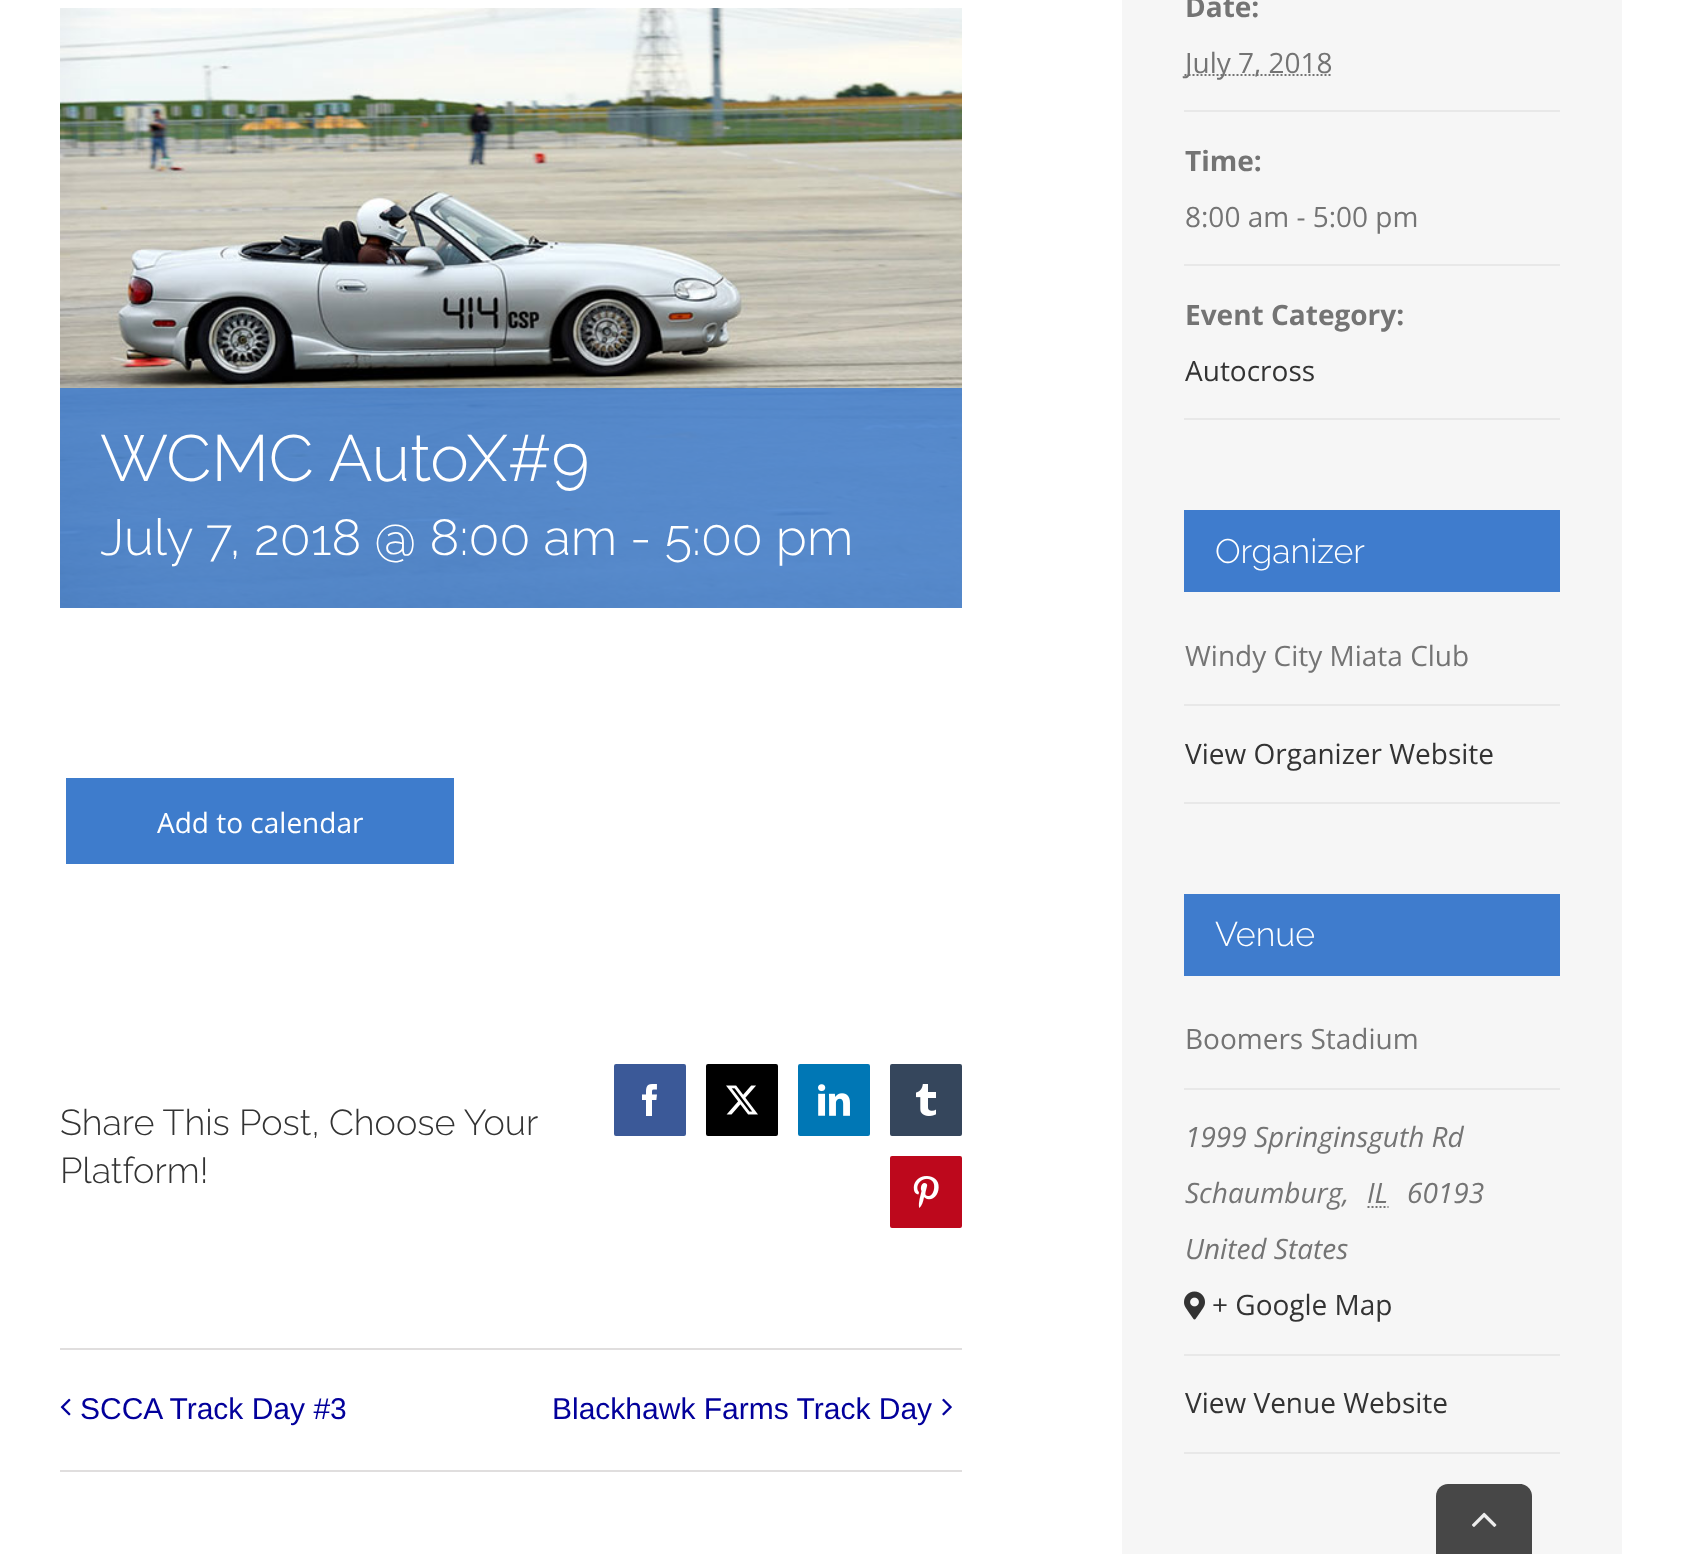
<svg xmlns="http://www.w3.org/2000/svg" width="1681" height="1554">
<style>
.a{font:300 65.25px Raleway;fill:#fff}
.b{font:300 50.7px Raleway;fill:#fff}
.c{font:28px Open Sans;fill:#fff}
.d{font:300 36px Raleway;fill:#333}
.e{font:30px Liberation Sans;fill:#02009b}
.f{font:bold 28px Open Sans;fill:#747474}
.g{font:28px Open Sans;fill:#747474}
.h{font:28px Open Sans;fill:#333}
.i{font:300 34px Raleway;fill:#fff}
.j{font:italic 28px Open Sans;fill:#747474}
</style>
<rect width="100%" height="100%" fill="#fff"/>
<image href="1.png" x="60" y="8" width="902" height="600"/>
<path fill="#3f7ccdd9" d="M60 388h902v220H60z"/>
<path fill="#3e7ccc" d="M66 778h388v86H66z"/>
<rect fill="#3b5998" stroke="#3b5998" stroke-width="2" x="615" y="1065" width="70" height="70" rx="1"/>
<image href="2.png" x="642" y="1084" width="15" height="32"/>
<rect fill="#000" stroke="#000" stroke-width="2" x="707" y="1065" width="70" height="70" rx="1"/>
<image href="3.png" x="726" y="1085" width="32" height="30"/>
<rect fill="#0077b5" stroke="#0077b5" stroke-width="2" x="799" y="1065" width="70" height="70" rx="1"/>
<image href="4.png" x="818" y="1084" width="32" height="32"/>
<rect fill="#35465c" stroke="#35465c" stroke-width="2" x="891" y="1065" width="70" height="70" rx="1"/>
<image href="5.png" x="916" y="1084" width="20" height="32"/>
<rect fill="#bd081c" stroke="#bd081c" stroke-width="2" x="891" y="1157" width="70" height="70" rx="1"/>
<image href="6.png" x="913" y="1176" width="26" height="32"/>
<path fill="#e0dede" d="M60 1348h902v2H60z"/>
<path fill="#e0dede" d="M60 1470h902v2H60z"/>
<image href="7.png" x="60" y="1398" width="11" height="18"/>
<image href="8.png" x="942" y="1398" width="10" height="18"/>
<path fill="#f6f6f6" d="M1122 0h500v1554H1122z"/>
<path fill="#e8e8e8" d="M1184 110h376v2H1184z"/>
<path fill="none" stroke="#747474" stroke-width="2" stroke-dasharray="2 2" d="M1184.5 75h148"/>
<path fill="#e8e8e8" d="M1184 264h376v2H1184z"/>
<path fill="#e8e8e8" d="M1184 418h376v2H1184z"/>
<path fill="#3f7ccd" d="M1184 510h376v82H1184z"/>
<path fill="#e8e8e8" d="M1184 704h376v2H1184z"/>
<path fill="#e8e8e8" d="M1184 802h376v2H1184z"/>
<path fill="#3f7ccd" d="M1184 894h376v82H1184z"/>
<path fill="#e8e8e8" d="M1184 1088h376v2H1184z"/>
<path fill="#e8e8e8" d="M1184 1354h376v2H1184z"/>
<path fill="none" stroke="#747474" stroke-width="2" stroke-dasharray="2 2" d="M1367.5 1207h21"/>
<image href="9.png" x="1184" y="1291" width="21" height="29"/>
<path fill="#e8e8e8" d="M1184 1452h376v2H1184z"/>
<path fill="#474747" d="M1448 1484h72c6.5 0 12 5.5 12 12v58h-96v-58c0-6.5 5.5-12 12-12z"/>
<image href="10.png" x="1472" y="1512" width="25" height="15"/>
<text class="a" x="100" y="481">WCMC AutoX#9</text>
<text class="b" x="100" y="555">July 7, 2018 @ 8:00 am - 5:00 pm</text>
<text class="c" x="157" y="833">Add to calendar</text>
<text class="d" x="60" y="1135">Share This Post, Choose Your</text>
<text class="d" x="60" y="1183">Platform!</text>
<text class="e" x="80" y="1419">SCCA Track Day #3</text>
<text class="e" x="552" y="1419">Blackhawk Farms Track Day</text>
<text class="f" x="1185" y="17">Date:</text>
<text class="g" x="1185" y="73">July 7, 2018</text>
<text class="f" x="1185" y="171">Time:</text>
<text class="g" x="1185" y="227">8:00 am - 5:00 pm</text>
<text class="f" x="1185" y="325">Event Category:</text>
<text class="h" x="1185" y="381">Autocross</text>
<text class="i" x="1215" y="563">Organizer</text>
<text class="g" x="1185" y="666">Windy City Miata Club</text>
<text class="h" x="1185" y="764">View Organizer Website</text>
<text class="i" x="1215" y="946">Venue</text>
<text class="g" x="1185" y="1049">Boomers Stadium</text>
<text class="j" x="1185" y="1147">1999 Springinsguth Rd</text>
<text class="j" x="1185" y="1203">Schaumburg,</text>
<text class="j" x="1367" y="1203">IL</text>
<text class="j" x="1407" y="1203">60193</text>
<text class="j" x="1185" y="1259">United States</text>
<text class="h" x="1212" y="1315">+ Google Map</text>
<text class="h" x="1185" y="1413">View Venue Website</text>
</svg>
